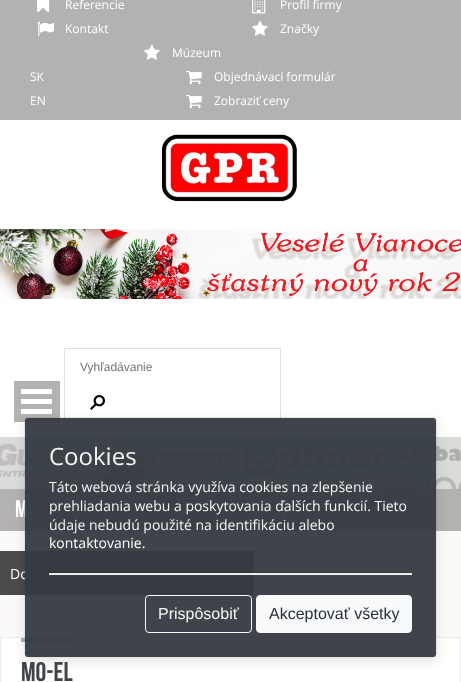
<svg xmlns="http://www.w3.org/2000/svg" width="461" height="682">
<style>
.a{font:12px Open Sans;fill:#fff}
.b{font:12px Liberation Sans;fill:#757575}
.c{font:24px Bebas Neue;fill:#fff}
.d{font:14px Open Sans;fill:#fff}
.e{font:27px Bebas Neue;fill:#3e4448}
.f{font:24px Open Sans;fill:#f5f5f6}
.g{font:14px Open Sans;fill:#f5f5f6}
.h{font:16px Liberation Sans;fill:#f5f5f6}
.i{font:16px Liberation Sans;fill:#2c3033}
</style>
<defs>
<clipPath id="clip1"><path d="M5 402h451v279h-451zm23 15h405c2 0 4 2 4 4v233c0 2-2 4-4 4h-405c-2 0-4-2-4-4v-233c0-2 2-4 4-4z" clip-rule="evenodd"/></clipPath>
</defs>
<rect width="100%" height="100%" fill="#fafafa"/>
<path fill="#b2b2b2" d="M0 0h461v120H0z"/>
<image href="1.png" x="37" y="0" width="13" height="12"/>
<image href="2.png" x="252" y="0" width="14" height="14"/>
<image href="3.png" x="37" y="21" width="17" height="16"/>
<image href="4.png" x="252" y="20" width="16" height="16"/>
<image href="4.png" x="144" y="44" width="16" height="16"/>
<image href="5.png" x="186" y="70" width="16" height="15"/>
<image href="5.png" x="186" y="94" width="16" height="15"/>
<path fill="#fff" d="M0 120h461v317H0z"/>
<image href="6.png" x="162" y="134" width="136" height="68"/>
<image href="7.png" x="0" y="229" width="461" height="70"/>
<path fill="none" stroke="#e1e1e1" d="M64.5 348.5h216v73H64.5z"/>
<image href="8.png" x="90" y="395" width="15" height="15"/>
<path fill="#b2b2b2" d="M14 381h46v41H14z"/>
<path fill="#fff" d="M21 409h31v5H21z"/>
<path fill="#fff" d="M21 399h31v5H21z"/>
<path fill="#fff" d="M21 389h31v5H21z"/>
<image href="9.png" x="0" y="437" width="461" height="52"/>
<path fill="#b2b2b2" d="M0 489h461v42H0z"/>
<path fill="#4b4b4b" d="M0 551h254v44H0z"/>
<path fill="#fff" stroke="#ebebeb" d="M0.5 637.5h460v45H0.5z"/>
<path fill="#b2b2b2" d="M21 638h52v4H21z"/>
<g clip-path="url(#clip1)">
<rect fill="#0000001a" filter="blur(6px)" x="24" y="421" width="413" height="241" rx="4"/>
</g>
<text class="a" x="65" y="9">Referencie</text>
<text class="a" x="280" y="9">Profil firmy</text>
<text class="a" x="65" y="33">Kontakt</text>
<text class="a" x="280" y="33">Značky</text>
<text class="a" x="172" y="57">Múzeum</text>
<text class="a" x="30" y="81">SK</text>
<text class="a" x="30" y="105">EN</text>
<text class="a" x="214" y="81">Objednávací formulár</text>
<text class="a" x="214" y="105">Zobraziť ceny</text>
<text class="b" x="80" y="371">Vyhľadávanie</text>
<text class="c" x="15" y="517">M</text>
<text class="d" x="10" y="579">Do</text>
<text class="e" x="21" y="681">MO-EL</text>
<rect fill="#343a40f2" x="25" y="418" width="411" height="239" rx="3"/>
<rect fill="none" stroke="#0000001a" x="24.5" y="417.5" width="412" height="240" rx="3.5"/>
<text class="f" x="49" y="465">Cookies</text>
<text class="g" x="49" y="492">Táto webová stránka využíva cookies na zlepšenie</text>
<text class="g" x="49" y="511">prehliadania webu a poskytovania ďalších funkcií. Tieto</text>
<text class="g" x="49" y="530">údaje nebudú použité na identifikáciu alebo</text>
<text class="d" x="49" y="548">kontaktovanie.</text>
<path fill="#eeeeeef2" d="M49 573h363v1H49z"/>
<path fill="#fffffff2" d="M49 574h363v1H49z"/>
<rect fill="none" stroke="#f8f9fa" x="145.5" y="595.5" width="106" height="37" rx="3.5"/>
<text class="h" x="158" y="619">Prispôsobiť</text>
<rect fill="#f8f9fa" stroke="#f8f9fa" x="256.5" y="595.5" width="155" height="37" rx="3.5"/>
<text class="i" x="269" y="619">Akceptovať všetky</text>
</svg>
